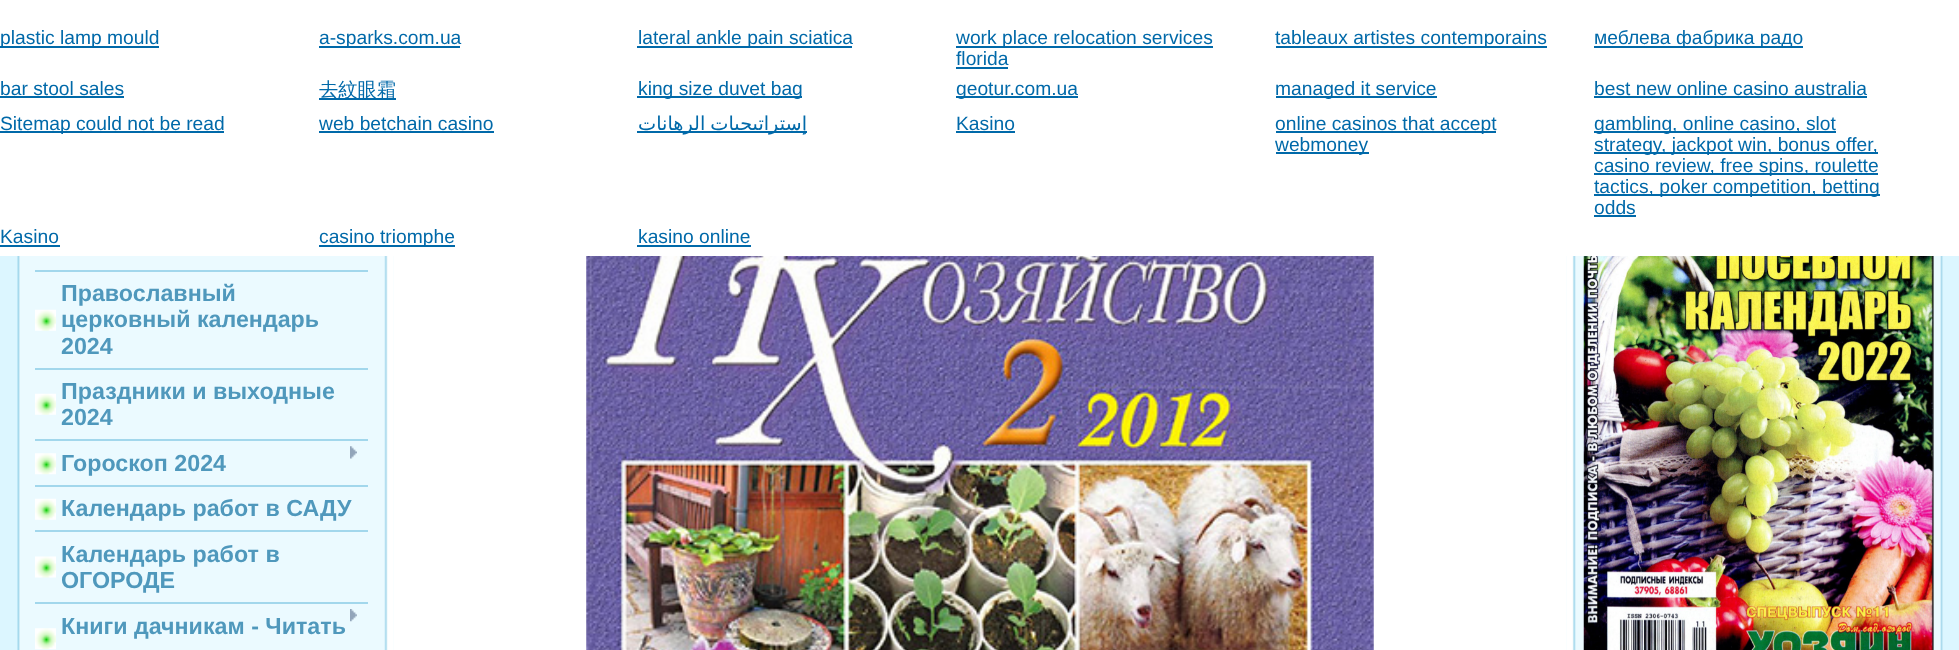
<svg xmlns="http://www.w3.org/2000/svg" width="1959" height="650">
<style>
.a{font:19.25px Liberation Sans;fill:#0069a9}
.b{font:500 19.25px WenQuanYi Zen Hei;fill:#0069a9}
.c{font:19.25px DejaVu Sans;direction:rtl;fill:#0069a9}
.d{font:bold 23.25px Liberation Sans;fill:#4f98bc}
</style>
<rect width="100%" height="100%" fill="#dcf6ff"/>
<path fill="#fff" d="M0 0h1959v256H0z"/>
<path fill="#0069a9" d="M0 46h159v2H0z"/>
<path fill="#0069a9" d="M319 46h141v2H319z"/>
<path fill="#0069a9" d="M637 46h215v2H637z"/>
<path fill="#0069a9" d="M956 46h257v2H956z"/>
<path fill="#0069a9" d="M956 67h52v2H956z"/>
<path fill="#0069a9" d="M1276 46h271v2H1276z"/>
<path fill="#0069a9" d="M1594 46h209v2H1594z"/>
<path fill="#0069a9" d="M0 96h124v2H0z"/>
<path fill="#0069a9" d="M319 98h77v2H319z"/>
<path fill="#0069a9" d="M637 96h165v2H637z"/>
<path fill="#0069a9" d="M956 96h122v2H956z"/>
<path fill="#0069a9" d="M1276 96h161v2H1276z"/>
<path fill="#0069a9" d="M1594 96h273v2H1594z"/>
<path fill="#0069a9" d="M0 131h224v2H0z"/>
<path fill="#0069a9" d="M319 131h175v2H319z"/>
<path fill="#0069a9" d="M637 131h170v2H637z"/>
<path fill="#0069a9" d="M956 131h59v2H956z"/>
<path fill="#0069a9" d="M1276 131h220v2H1276z"/>
<path fill="#0069a9" d="M1276 152h93v2H1276z"/>
<path fill="#0069a9" d="M1594 131h242v2H1594z"/>
<path fill="#0069a9" d="M1594 152h284v2H1594z"/>
<path fill="#0069a9" d="M1594 173h284v2H1594z"/>
<path fill="#0069a9" d="M1594 194h286v2H1594z"/>
<path fill="#0069a9" d="M1594 215h42v2H1594z"/>
<path fill="#0069a9" d="M0 245h60v2H0z"/>
<path fill="#0069a9" d="M319 245h136v2H319z"/>
<path fill="#0069a9" d="M637 245h114v2H637z"/>
<path fill="#ebfaff" d="M393 256h1550v394H393z"/>
<image href="1.png" x="17" y="256" width="377" height="394"/>
<path fill="#a2d7ec" d="M35 270h333v2H35z"/>
<image href="2.png" x="35" y="309" width="21" height="22"/>
<path fill="#a2d7ec" d="M35 368h333v2H35z"/>
<image href="2.png" x="35" y="393" width="21" height="22"/>
<path fill="#a2d7ec" d="M35 439h333v2H35z"/>
<image href="3.png" x="35" y="453" width="21" height="22"/>
<path fill="#a2d7ec" d="M35 485h333v2H35z"/>
<image href="4.png" x="350" y="446" width="7" height="13"/>
<image href="2.png" x="35" y="498" width="21" height="22"/>
<path fill="#a2d7ec" d="M35 530h333v2H35z"/>
<image href="5.png" x="35" y="556" width="21" height="22"/>
<path fill="#a2d7ec" d="M35 602h333v2H35z"/>
<image href="3.png" x="35" y="628" width="21" height="22"/>
<image href="6.png" x="350" y="609" width="7" height="13"/>
<path fill="#fff" d="M394 256h1172v394H394z"/>
<image href="7.png" x="586" y="256" width="788" height="394"/>
<image href="8.png" x="1566" y="256" width="377" height="394"/>
<image href="9.png" x="1583" y="256" width="351" height="394"/>
<text class="a" x="0" y="44">plastic lamp mould</text>
<text class="a" x="319" y="44">a-sparks.com.ua</text>
<text class="a" x="638" y="44">lateral ankle pain sciatica</text>
<text class="a" x="956" y="44">work place relocation services</text>
<text class="a" x="956" y="65">florida</text>
<text class="a" x="1275" y="44">tableaux artistes contemporains</text>
<text class="a" x="1594" y="44">меблева фабрика радо</text>
<text class="a" x="0" y="95">bar stool sales</text>
<text class="b" x="319" y="96">去紋眼霜</text>
<text class="a" x="638" y="95">king size duvet bag</text>
<text class="a" x="956" y="95">geotur.com.ua</text>
<text class="a" x="1275" y="95">managed it service</text>
<text class="a" x="1594" y="95">best new online casino australia</text>
<text class="a" x="0" y="130">Sitemap could not be read</text>
<text class="a" x="319" y="130">web betchain casino</text>
<text class="c" x="807" y="130" word-spacing="-1">إستراتيجيات الرهانات</text>
<text class="a" x="956" y="130">Kasino</text>
<text class="a" x="1275" y="130">online casinos that accept</text>
<text class="a" x="1275" y="151">webmoney</text>
<text class="a" x="1594" y="130">gambling, online casino, slot</text>
<text class="a" x="1594" y="151">strategy, jackpot win, bonus offer,</text>
<text class="a" x="1594" y="172">casino review, free spins, roulette</text>
<text class="a" x="1594" y="193">tactics, poker competition, betting</text>
<text class="a" x="1594" y="214">odds</text>
<text class="a" x="0" y="243">Kasino</text>
<text class="a" x="319" y="243">casino triomphe</text>
<text class="a" x="638" y="243">kasino online</text>
<text class="d" x="61" y="301">Православный</text>
<text class="d" x="61" y="327">церковный календарь</text>
<text class="d" x="61" y="354">2024</text>
<text class="d" x="61" y="399">Праздники и выходные</text>
<text class="d" x="61" y="425">2024</text>
<text class="d" x="61" y="471">Гороскоп 2024</text>
<text class="d" x="61" y="516">Календарь работ в САДУ</text>
<text class="d" x="61" y="562">Календарь работ в</text>
<text class="d" x="61" y="588">ОГОРОДЕ</text>
<text class="d" x="61" y="634">Книги дачникам - Читать</text>
</svg>
